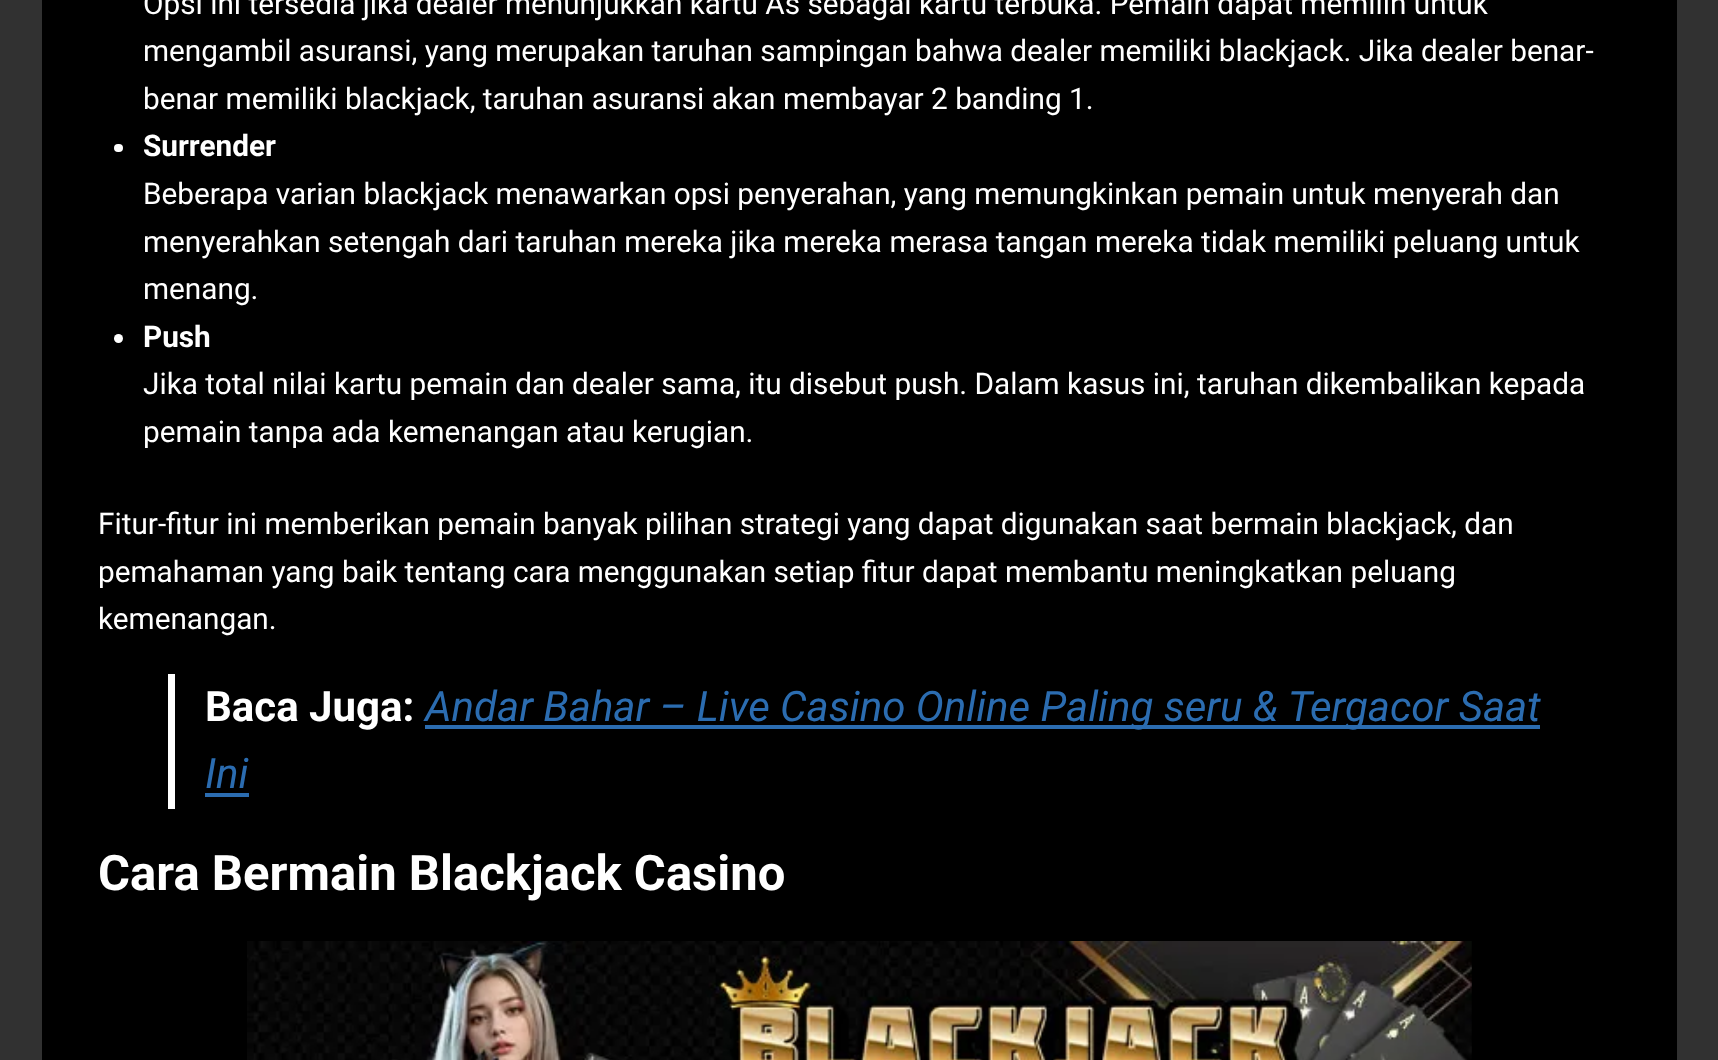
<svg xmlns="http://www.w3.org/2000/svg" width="1718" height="1060">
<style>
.a{font:29.75px Roboto;fill:#fff}
.b{font:bold 29.75px Roboto;fill:#fff}
.c{font:bold 42px Roboto;fill:#fff}
.d{font:italic 42px Roboto;fill:#2b6cb0}
.e{font:bold 49px Roboto;fill:#fff}
</style>
<rect width="100%" height="100%" fill="#313131"/>
<path fill="#000" d="M42 0h1635v1060H42z"/>
<rect fill="#fff" x="114" y="144" width="9" height="8" rx="4"/>
<circle fill="#fff" cx="118.5" cy="338.5" r="4.5"/>
<path fill="#fff" d="M168 674h7v135H168z"/>
<path fill="#2b6cb0" d="M425 725h1115v4H425z"/>
<path fill="#2b6cb0" d="M205 793h44v4H205z"/>
<image href="1.png" x="247" y="941" width="1225" height="119"/>
<text class="a" x="143" y="14">Opsi ini tersedia jika dealer menunjukkan kartu As sebagai kartu terbuka. Pemain dapat memilih untuk</text>
<text class="a" x="143" y="61">mengambil asuransi, yang merupakan taruhan sampingan bahwa dealer memiliki blackjack. Jika dealer benar-</text>
<text class="a" x="143" y="109">benar memiliki blackjack, taruhan asuransi akan membayar 2 banding 1.</text>
<text class="b" x="143" y="156">Surrender</text>
<text class="a" x="143" y="204">Beberapa varian blackjack menawarkan opsi penyerahan, yang memungkinkan pemain untuk menyerah dan</text>
<text class="a" x="143" y="252">menyerahkan setengah dari taruhan mereka jika mereka merasa tangan mereka tidak memiliki peluang untuk</text>
<text class="a" x="143" y="299">menang.</text>
<text class="b" x="143" y="347">Push</text>
<text class="a" x="143" y="394">Jika total nilai kartu pemain dan dealer sama, itu disebut push. Dalam kasus ini, taruhan dikembalikan kepada</text>
<text class="a" x="143" y="442">pemain tanpa ada kemenangan atau kerugian.</text>
<text class="a" x="98" y="534">Fitur-fitur ini memberikan pemain banyak pilihan strategi yang dapat digunakan saat bermain blackjack, dan</text>
<text class="a" x="98" y="582">pemahaman yang baik tentang cara menggunakan setiap fitur dapat membantu meningkatkan peluang</text>
<text class="a" x="98" y="629">kemenangan.</text>
<text class="c" x="205" y="721">Baca Juga:</text>
<text class="d" x="425" y="721">Andar Bahar – Live Casino Online Paling seru &amp; Tergacor Saat</text>
<text class="d" x="205" y="788">Ini</text>
<text class="e" x="98" y="890">Cara Bermain Blackjack Casino</text>
</svg>
